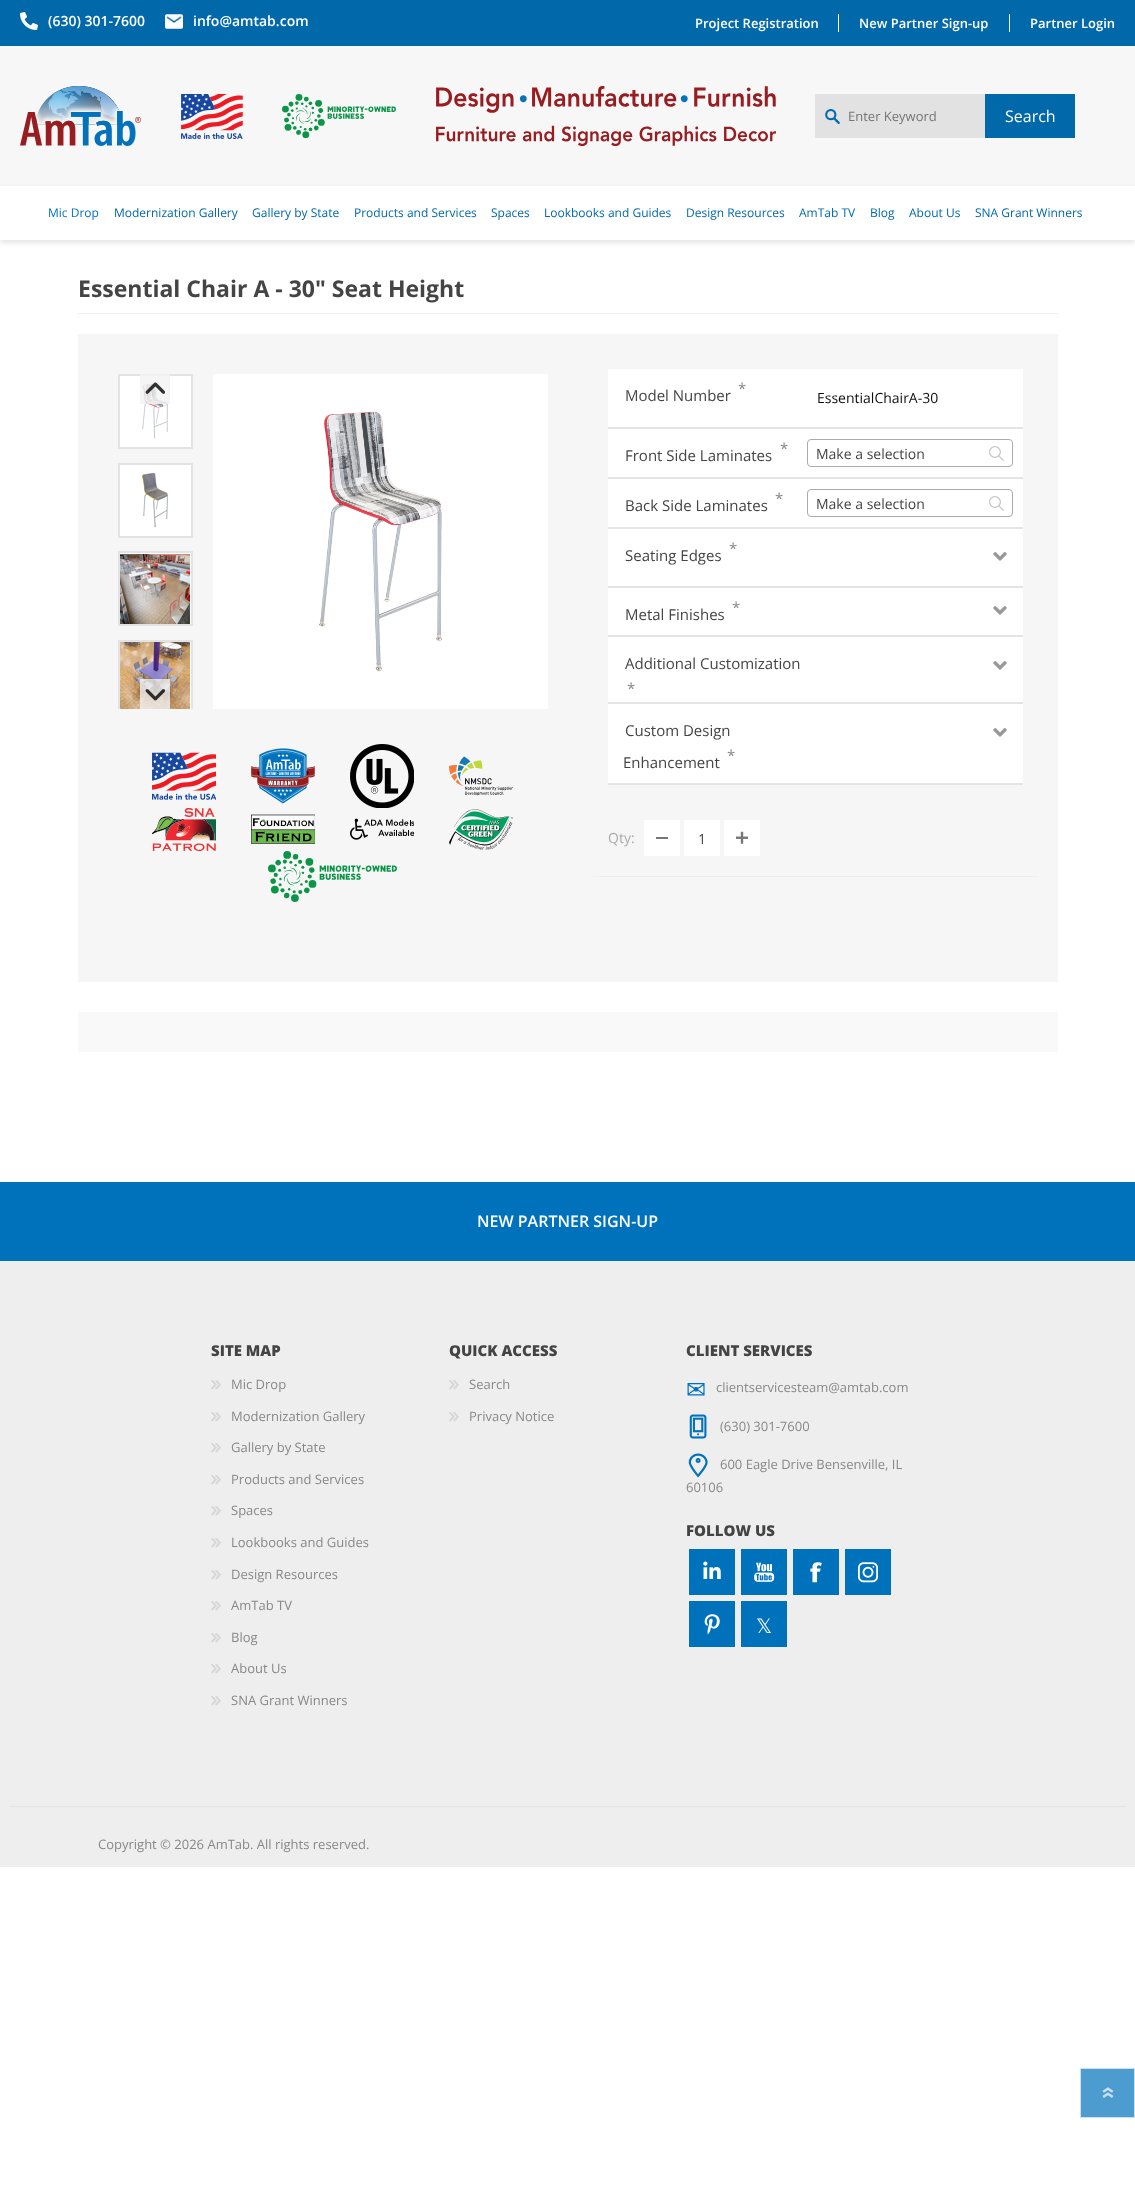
<svg xmlns="http://www.w3.org/2000/svg" width="1135" height="2188">
<style>*{font-kerning:none!important;font-variant-ligatures:none!important}</style>
<style>
.a{font:600 14px Open Sans;fill:#fff}
.b{font:600 13px Open Sans;fill:#fff}
.c{font:13px Open Sans;fill:#757575}
.d{font:16px Open Sans;fill:#fff}
.e{font:12px Open Sans;fill:#0072bc}
.f{font:12px Open Sans;fill:#0168aa}
.g{font:bold 23px Open Sans;fill:#444}
.h{font:15px Open Sans;fill:#888}
.i{font:15px Open Sans;fill:#444}
.j{font:14px Open Sans;fill:#0d0d0d}
.k{font:14px Open Sans;fill:#444}
.l{font:14px Open Sans;fill:#aaa}
.m{font:600 16px Open Sans;fill:#fff}
.n{font:800 15px Open Sans;fill:#444}
.o{font:13px Open Sans;fill:#888}
.p{font:24px DejaVu Sans;fill:#0072bc}
.q{font:20px DejaVu Sans;fill:#fff}
</style>
<defs>
<clipPath id="clip1"><path d="M118 374h75v335H118z"/></clipPath>
</defs>
<rect width="100%" height="100%" fill="#fff"/>
<path fill="#0168aa" d="M0 0h1135v46H0z"/>
<image href="1.png" x="20" y="12" width="18" height="18"/>
<image href="2.png" x="165" y="14" width="18" height="15"/>
<path fill="#fff" d="M838 14h1v18H838z"/>
<path fill="#fff" d="M1009 14h1v18H1009z"/>
<path fill="#f7f7f7" d="M0 46h1135v140H0z"/>
<image href="3.png" x="20" y="86" width="121" height="60"/>
<image href="4.png" x="181" y="94" width="62" height="45"/>
<image href="5.png" x="282" y="94" width="114" height="44"/>
<image href="6.png" x="436" y="86" width="340" height="60"/>
<path fill="#e2e2e2" d="M815 94h170v44H815z"/>
<image href="7.png" x="825" y="109" width="15" height="15"/>
<path fill="#0168aa" d="M985 94h90v44H985z"/>
<path fill="#0000001a" filter="blur(2.5px)" d="M0 189h1135v54H0z"/>
<path fill="#fff" d="M0 186h1135v54H0z"/>
<path fill="#eee" d="M78 313h980v1H78z"/>
<path fill="#f6f6f6" d="M78 334h980v648H78z"/>
<path fill="#fff" stroke="#e3e3e3" stroke-width="2" d="M119 375h73v73H119z"/>
<image href="8.png" x="142" y="383" width="26" height="56"/>
<path fill="#fff" stroke="#e3e3e3" stroke-width="2" d="M119 464h73v73H119z"/>
<image href="9.png" x="142" y="472" width="26" height="56"/>
<path fill="#fff" stroke="#e3e3e3" stroke-width="2" d="M119 552h73v73H119z"/>
<image href="10.png" x="120" y="554" width="70" height="70"/>
<path fill="#fff" d="M120 642h71v67H120z"/>
<g clip-path="url(#clip1)">
<path fill="none" stroke="#e3e3e3" stroke-width="2" d="M119 641h73v73H119z"/>
</g>
<image href="11.png" x="120" y="642" width="70" height="67"/>
<path fill="#f2f2f2cc" d="M140 374h30v30H140z"/>
<image href="12.png" x="145" y="382" width="21" height="12"/>
<path fill="#f2f2f2cc" d="M140 679h30v30H140z"/>
<image href="13.png" x="145" y="689" width="21" height="12"/>
<image href="14.png" x="213" y="374" width="335" height="335"/>
<image href="15.png" x="152" y="752" width="64" height="48"/>
<image href="16.png" x="251" y="748" width="64" height="56"/>
<image href="17.png" x="350" y="744" width="64" height="64"/>
<image href="18.png" x="449" y="756" width="64" height="40"/>
<image href="19.png" x="152" y="808" width="64" height="43"/>
<image href="20.png" x="251" y="814" width="64" height="30"/>
<image href="21.png" x="350" y="818" width="64" height="22"/>
<image href="22.png" x="449" y="809" width="64" height="41"/>
<image href="23.png" x="268" y="851" width="129" height="51"/>
<path fill="#fff" d="M608 369h415v58H608z"/>
<path fill="#e4e4e4" d="M608 427h415v2H608z"/>
<path fill="#fff" d="M608 429h415v48H608z"/>
<path fill="#e4e4e4" d="M608 477h415v2H608z"/>
<rect fill="none" stroke="#aaa" x="807.5" y="439.5" width="205" height="27" rx="3.5"/>
<image href="24.png" x="989" y="446" width="15" height="15"/>
<path fill="#fff" d="M608 479h415v48H608z"/>
<path fill="#e4e4e4" d="M608 527h415v2H608z"/>
<rect fill="none" stroke="#aaa" x="807.5" y="489.5" width="205" height="27" rx="3.5"/>
<image href="24.png" x="989" y="496" width="15" height="15"/>
<path fill="#fff" d="M608 529h415v57H608z"/>
<path fill="#e4e4e4" d="M608 586h415v2H608z"/>
<image href="25.png" x="993" y="552" width="14" height="9"/>
<path fill="#fff" d="M608 588h415v47H608z"/>
<path fill="#e4e4e4" d="M608 635h415v2H608z"/>
<image href="25.png" x="993" y="606" width="14" height="9"/>
<path fill="#fff" d="M608 637h415v65H608z"/>
<path fill="#e4e4e4" d="M608 702h415v2H608z"/>
<image href="25.png" x="993" y="661" width="14" height="9"/>
<path fill="#fff" d="M608 704h415v79H608z"/>
<path fill="#e4e4e4" d="M608 783h415v2H608z"/>
<image href="25.png" x="993" y="728" width="14" height="9"/>
<path fill="#fff" d="M644 820h36v36H644z"/>
<path fill="#777" d="M656 837h12v2H656z"/>
<path fill="#fff" d="M684 820h36v36H684z"/>
<path fill="#fff" d="M724 820h36v36H724z"/>
<image href="26.png" x="736" y="831" width="12" height="13"/>
<path fill="#eee" d="M593 876h445v1H593z"/>
<path fill="#f9f9f9" d="M78 1012h980v40H78z"/>
<path fill="#eee" d="M0 1261h1135v606H0z"/>
<path fill="#0072bc" d="M0 1182h1135v79H0z"/>
<image href="27.png" x="211" y="1380" width="10" height="10"/>
<image href="27.png" x="211" y="1412" width="10" height="10"/>
<image href="27.png" x="211" y="1443" width="10" height="10"/>
<image href="27.png" x="211" y="1475" width="10" height="10"/>
<image href="27.png" x="211" y="1506" width="10" height="10"/>
<image href="27.png" x="211" y="1538" width="10" height="10"/>
<image href="27.png" x="211" y="1570" width="10" height="10"/>
<image href="27.png" x="211" y="1601" width="10" height="10"/>
<image href="27.png" x="211" y="1633" width="10" height="10"/>
<image href="27.png" x="211" y="1664" width="10" height="10"/>
<image href="27.png" x="211" y="1696" width="10" height="10"/>
<image href="27.png" x="449" y="1380" width="10" height="10"/>
<image href="27.png" x="449" y="1412" width="10" height="10"/>
<image href="28.png" x="689" y="1414" width="18" height="25"/>
<image href="29.png" x="688" y="1453" width="20" height="25"/>
<path fill="#0072bc" d="M689 1549h46v46H689z"/>
<image href="30.png" x="703" y="1561" width="18" height="18"/>
<path fill="#0072bc" d="M741 1549h46v46H741z"/>
<image href="31.png" x="754" y="1562" width="21" height="20"/>
<path fill="#0072bc" d="M793 1549h46v46H793z"/>
<image href="32.png" x="810" y="1562" width="12" height="21"/>
<path fill="#0072bc" d="M845 1549h46v46H845z"/>
<image href="33.png" x="858" y="1562" width="20" height="21"/>
<path fill="#0072bc" d="M689 1601h46v46H689z"/>
<image href="34.png" x="704" y="1614" width="16" height="21"/>
<path fill="#0072bc" d="M741 1601h46v46H741z"/>
<path fill="#e2e2e2" d="M9 1806h1117v1H9z"/>
<path fill="#4d9cd0" stroke="#cae1f1" d="M1080.5 2068.5h54v49H1080.5z"/>
<image href="35.png" x="1102" y="2087" width="12" height="11"/>
<text class="a" x="48" y="26">(630) 301-7600</text>
<text class="a" x="193" y="26">info@amtab.com</text>
<text class="b" x="695" y="28">Project Registration</text>
<text class="b" x="859" y="28">New Partner Sign-up</text>
<text class="b" x="1030" y="28">Partner Login</text>
<text class="c" x="848" y="121">Enter Keyword</text>
<text class="d" x="1005" y="122">Search</text>
<text class="e" x="48" y="217">Mic Drop</text>
<text class="f" x="114" y="217">Modernization Gallery</text>
<text class="f" x="252" y="217">Gallery by State</text>
<text class="f" x="354" y="217">Products and Services</text>
<text class="f" x="491" y="217">Spaces</text>
<text class="f" x="544" y="217">Lookbooks and Guides</text>
<text class="f" x="686" y="217">Design Resources</text>
<text class="f" x="799" y="217">AmTab TV</text>
<text class="f" x="870" y="217">Blog</text>
<text class="f" x="909" y="217">About Us</text>
<text class="f" x="975" y="217">SNA Grant Winners</text>
<text class="g" x="78" y="297">Essential Chair A - 30" Seat Height</text>
<text class="h" x="738" y="394">*</text>
<text class="i" x="625" y="401">Model Number</text>
<text class="j" x="817" y="403">EssentialChairA-30</text>
<text class="h" x="780" y="454">*</text>
<text class="i" x="625" y="461">Front Side Laminates</text>
<text class="k" x="816" y="459">Make a selection</text>
<text class="h" x="775" y="504">*</text>
<text class="i" x="625" y="511">Back Side Laminates</text>
<text class="k" x="816" y="509">Make a selection</text>
<text class="h" x="729" y="554">*</text>
<text class="i" x="625" y="561">Seating Edges</text>
<text class="h" x="732" y="613">*</text>
<text class="i" x="625" y="620">Metal Finishes</text>
<text class="i" x="625" y="669">Additional Customization</text>
<text class="h" x="627" y="694">*</text>
<text class="i" x="625" y="736">Custom Design</text>
<text class="h" x="727" y="761">*</text>
<text class="i" x="623" y="768">Enhancement</text>
<text class="l" x="608" y="843">Qty:</text>
<text class="k" x="698" y="844">1</text>
<text class="m" x="477" y="1227">NEW PARTNER SIGN-UP</text>
<text class="n" x="211" y="1356">SITE MAP</text>
<text class="o" x="231" y="1389">Mic Drop</text>
<text class="o" x="231" y="1421">Modernization Gallery</text>
<text class="o" x="231" y="1452">Gallery by State</text>
<text class="o" x="231" y="1484">Products and Services</text>
<text class="o" x="231" y="1515">Spaces</text>
<text class="o" x="231" y="1547">Lookbooks and Guides</text>
<text class="o" x="231" y="1579">Design Resources</text>
<text class="o" x="231" y="1610">AmTab TV</text>
<text class="o" x="231" y="1642">Blog</text>
<text class="o" x="231" y="1673">About Us</text>
<text class="o" x="231" y="1705">SNA Grant Winners</text>
<text class="n" x="449" y="1356">QUICK ACCESS</text>
<text class="o" x="469" y="1389">Search</text>
<text class="o" x="469" y="1421">Privacy Notice</text>
<text class="n" x="686" y="1356">CLIENT SERVICES</text>
<text class="p" x="686" y="1398">✉</text>
<text class="o" x="716" y="1392">clientservicesteam@amtab.com</text>
<text class="o" x="720" y="1431">(630) 301-7600</text>
<text class="o" x="720" y="1469">600 Eagle Drive Bensenville, IL</text>
<text class="o" x="686" y="1492">60106</text>
<text class="n" x="686" y="1536">FOLLOW US</text>
<text class="q" x="756" y="1633">𝕏</text>
<text class="o" x="98" y="1849">Copyright © 2026 AmTab. All rights reserved.</text>
</svg>
